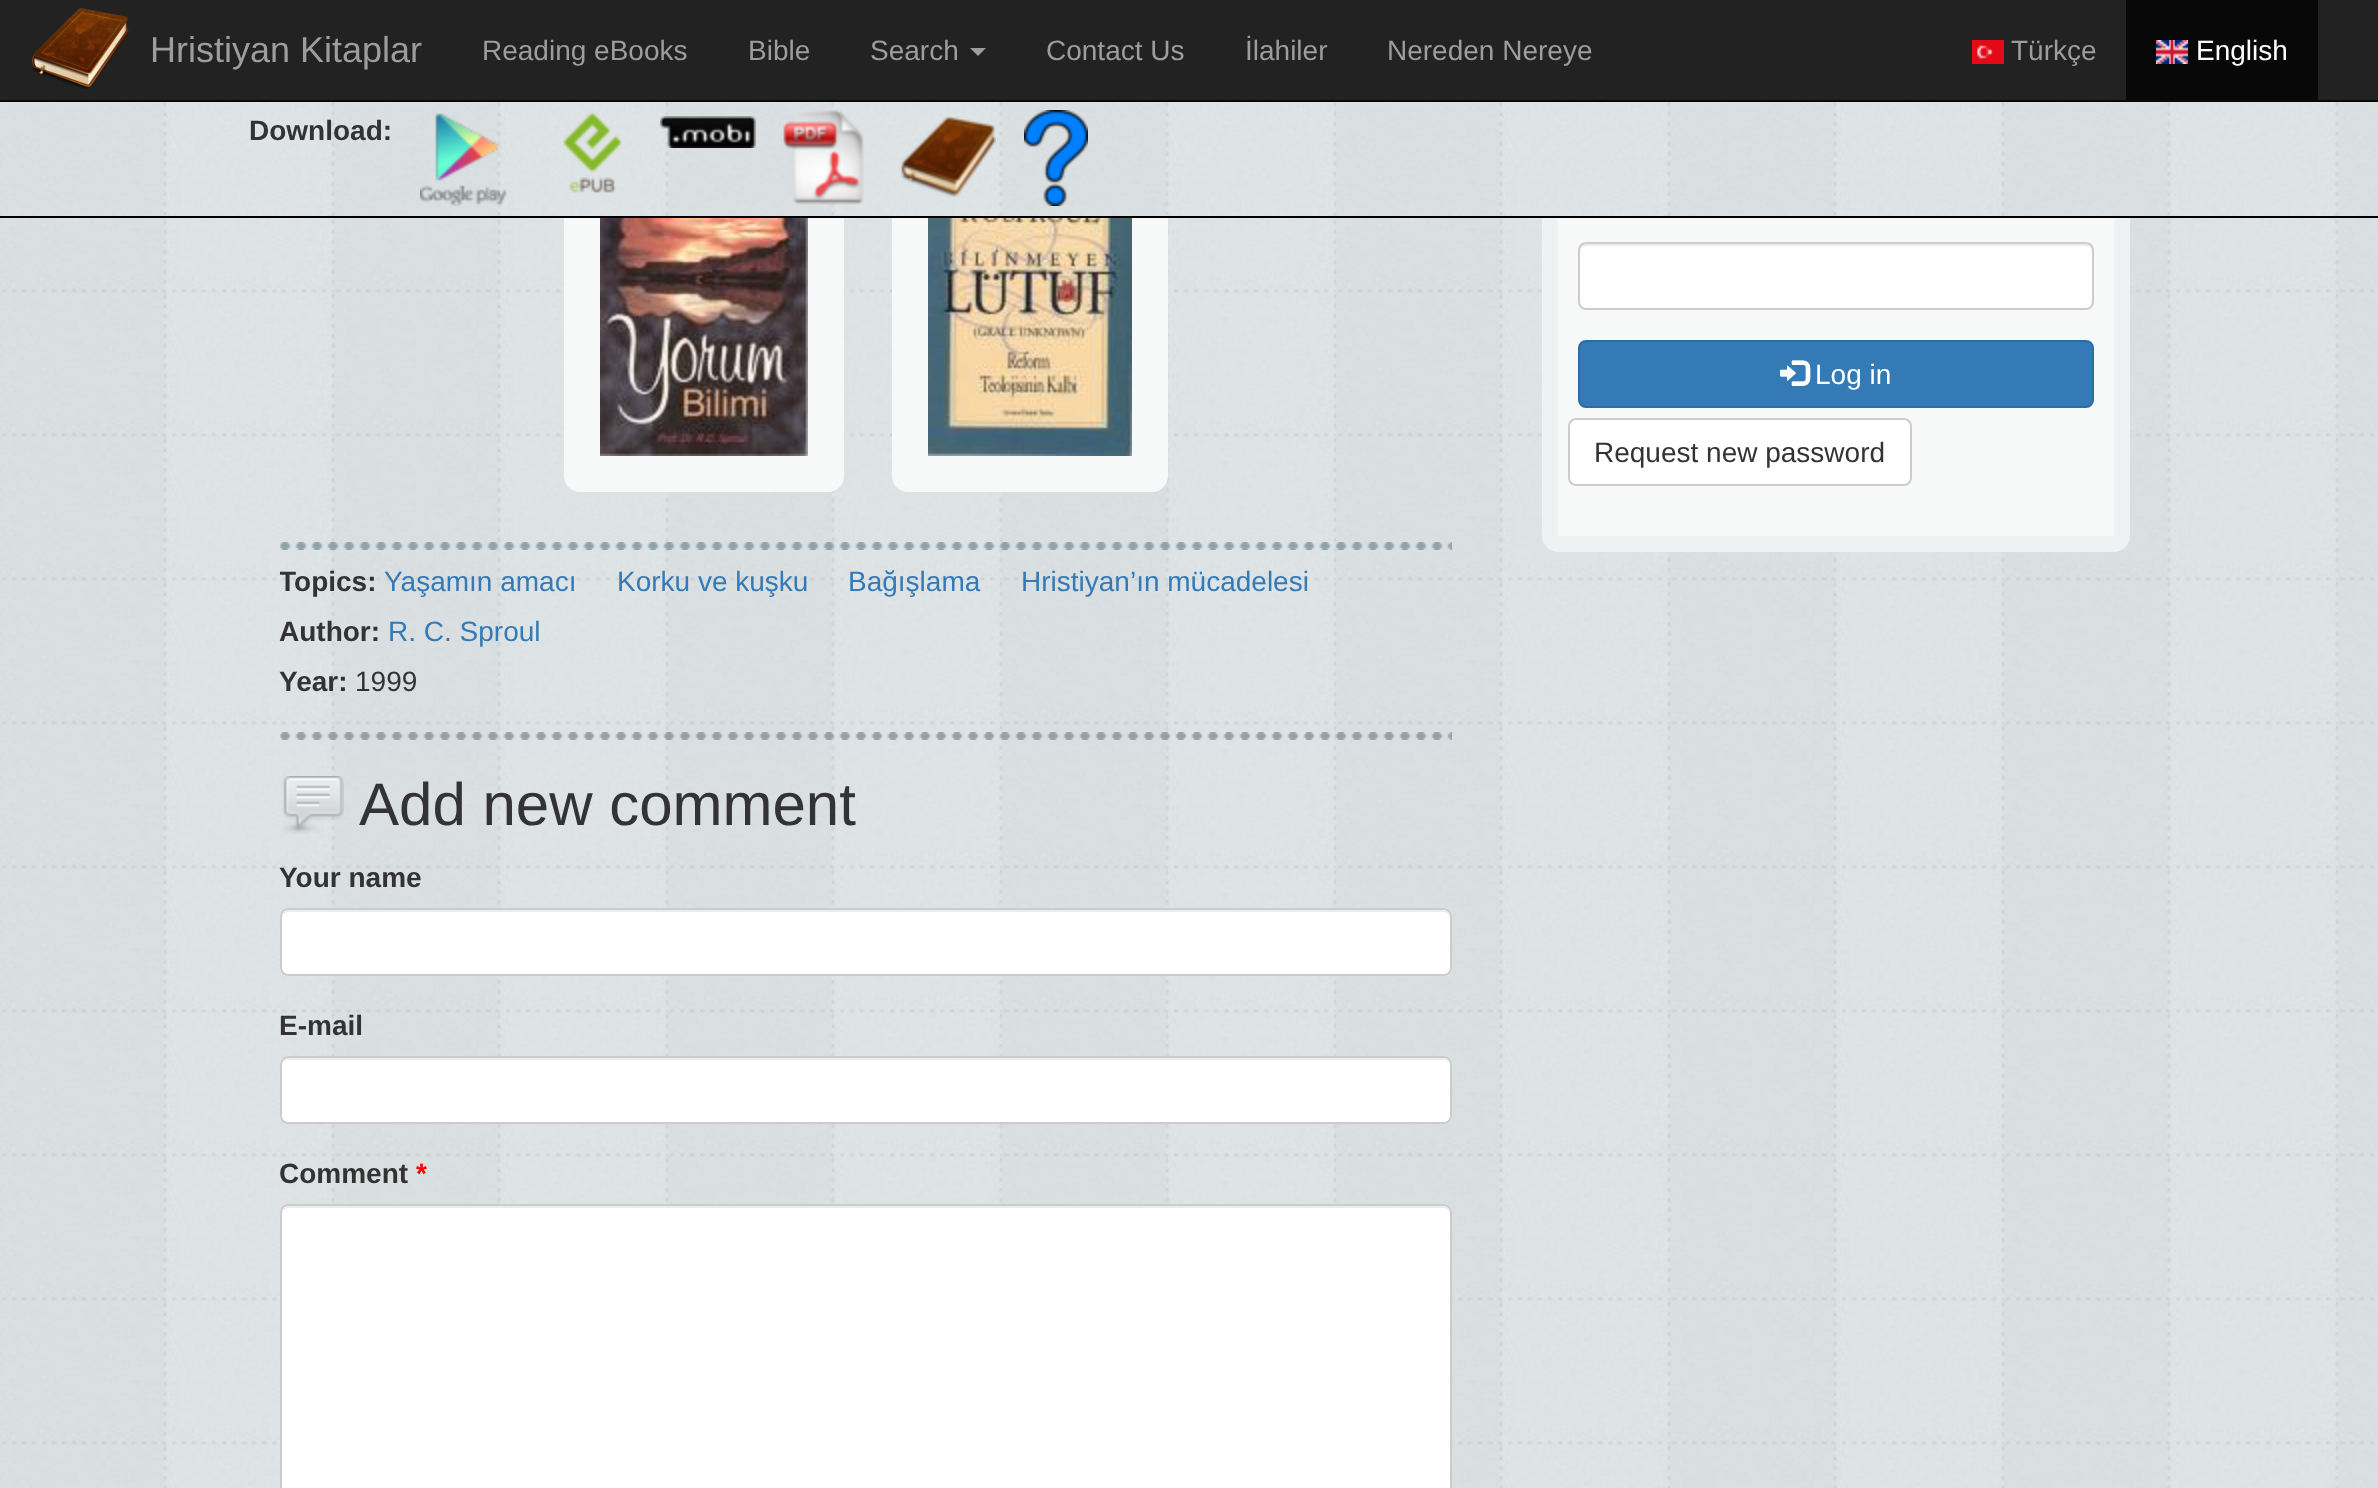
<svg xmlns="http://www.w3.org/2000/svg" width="2378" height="1488">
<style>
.a{font:36px Liberation Sans;fill:#9d9d9d}
.b{font:28px Liberation Sans;fill:#9d9d9d}
.c{font:28px Liberation Sans;fill:#fff}
.d{font:bold 28px Liberation Sans;fill:#333}
.e{font:28px Liberation Sans;fill:#333}
.f{font:28px Liberation Sans;fill:#337ab7}
.g{font:60px Liberation Sans;fill:#333}
.h{font:bold 28px Liberation Sans;fill:#f00}
</style>
<defs>
<clipPath id="clip1"><path d="M280 542h1172v170H280z"/></clipPath>
</defs>
<rect width="100%" height="100%" fill="#fff"/>
<image href="1.png" x="0" y="102" width="2378" height="1386"/>
<rect fill="#f7f9f9" stroke="#eef2f2" stroke-width="16" x="1550" y="-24" width="572" height="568" rx="8"/>
<path fill="#222" d="M0 0h2378v100H0z"/>
<path fill="#080808" d="M0 100h2378v2H0z"/>
<image href="2.png" x="32" y="8" width="97" height="81"/>
<path fill="#9d9d9d" d="M970 48h16l-8 8z"/>
<image href="3.png" x="1972" y="40" width="32" height="24"/>
<path fill="#080808" d="M2126 0h192v100H2126z"/>
<image href="4.png" x="2156" y="40" width="32" height="24"/>
<rect fill="#f7f9f9" stroke="#f7f9f9" stroke-width="16" x="572" y="128" width="264" height="356" rx="8"/>
<rect fill="#f7f9f9" stroke="#f7f9f9" stroke-width="16" x="900" y="128" width="260" height="356" rx="8"/>
<image href="5.png" x="0" y="102" width="2375" height="114"/>
<path fill="#000" d="M0 216h2378v2H0z"/>
<image href="6.png" x="420" y="113" width="87" height="93"/>
<image href="7.png" x="563" y="112" width="60" height="81"/>
<image href="8.png" x="660" y="116" width="96" height="32"/>
<image href="9.png" x="783" y="110" width="81" height="95"/>
<image href="10.png" x="900" y="116" width="96" height="81"/>
<image href="11.png" x="1024" y="110" width="64" height="96"/>
<rect fill="#fff" x="1578" y="242" width="516" height="68" rx="8"/>
<path fill="#ececec" d="M1586 246h500c3 0 6 3 6 6c0-4-1-8-6-8h-500c-5 0-6 4-6 8c0-3 3-6 6-6z"/>
<rect fill="none" stroke="#ccc" stroke-width="2" x="1579" y="243" width="514" height="66" rx="7"/>
<rect fill="#337ab7" stroke="#2e6da4" stroke-width="2" x="1579" y="341" width="514" height="66" rx="7"/>
<image href="12.png" x="1780" y="360" width="31" height="26"/>
<rect fill="#fff" stroke="#ccc" stroke-width="2" x="1569" y="419" width="342" height="66" rx="7"/>
<image href="13.png" x="600" y="218" width="208" height="238"/>
<image href="14.png" x="928" y="218" width="204" height="238"/>
<image href="15.png" x="280" y="542" width="1172" height="8"/>
<image href="16.png" x="280" y="732" width="1172" height="8"/>
<image href="17.png" x="283" y="776" width="61" height="58"/>
<rect fill="#fff" x="280" y="908" width="1172" height="68" rx="8"/>
<path fill="#ececec" d="M288 912h1156c3 0 6 3 6 6v-2c0-3-3-6-6-6h-1156c-3 0-6 3-6 6v2c0-3 3-6 6-6z"/>
<rect fill="none" stroke="#ccc" stroke-width="2" x="281" y="909" width="1170" height="66" rx="7"/>
<rect fill="#fff" x="280" y="1056" width="1172" height="68" rx="8"/>
<path fill="#ececec" d="M288 1060h1156c3 0 6 3 6 6v-2c0-3-3-6-6-6h-1156c-3 0-6 3-6 6v2c0-3 3-6 6-6z"/>
<rect fill="none" stroke="#ccc" stroke-width="2" x="281" y="1057" width="1170" height="66" rx="7"/>
<rect fill="#fff" x="280" y="1204" width="1172" height="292" rx="8"/>
<path fill="#ececec" d="M288 1208h1156c3 0 6 3 6 6v-2c0-3-3-6-6-6h-1156c-3 0-6 3-6 6v2c0-3 3-6 6-6z"/>
<rect fill="none" stroke="#ccc" stroke-width="2" x="281" y="1205" width="1170" height="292" rx="7"/>
<text class="a" x="150" y="62">Hristiyan Kitaplar</text>
<text class="b" x="482" y="60">Reading eBooks</text>
<text class="b" x="748" y="60">Bible</text>
<text class="b" x="870" y="60">Search</text>
<text class="b" x="1046" y="60">Contact Us</text>
<text class="b" x="1245" y="60">İlahiler</text>
<text class="b" x="1387" y="60">Nereden Nereye</text>
<text class="b" x="2011" y="60">Türkçe</text>
<text class="c" x="2196" y="60">English</text>
<text class="d" x="249" y="140">Download:</text>
<text class="c" x="1815" y="384">Log in</text>
<text class="e" x="1594" y="462">Request new password</text>
<g clip-path="url(#clip1)">
<text class="d" x="279" y="591">Topics:</text>
</g>
<text class="f" x="384" y="591">Yaşamın amacı</text>
<text class="f" x="617" y="591">Korku ve kuşku</text>
<text class="f" x="848" y="591">Bağışlama</text>
<text class="f" x="1021" y="591">Hristiyan’ın mücadelesi</text>
<text class="d" x="279" y="641">Author:</text>
<text class="f" x="388" y="641">R. C. Sproul</text>
<text class="d" x="279" y="691">Year:</text>
<text class="e" x="355" y="691">1999</text>
<text class="g" x="359" y="825">Add new comment</text>
<text class="d" x="279" y="887">Your name</text>
<text class="d" x="279" y="1035">E-mail</text>
<text class="d" x="279" y="1183">Comment</text>
<text class="h" x="416" y="1183">*</text>
</svg>
